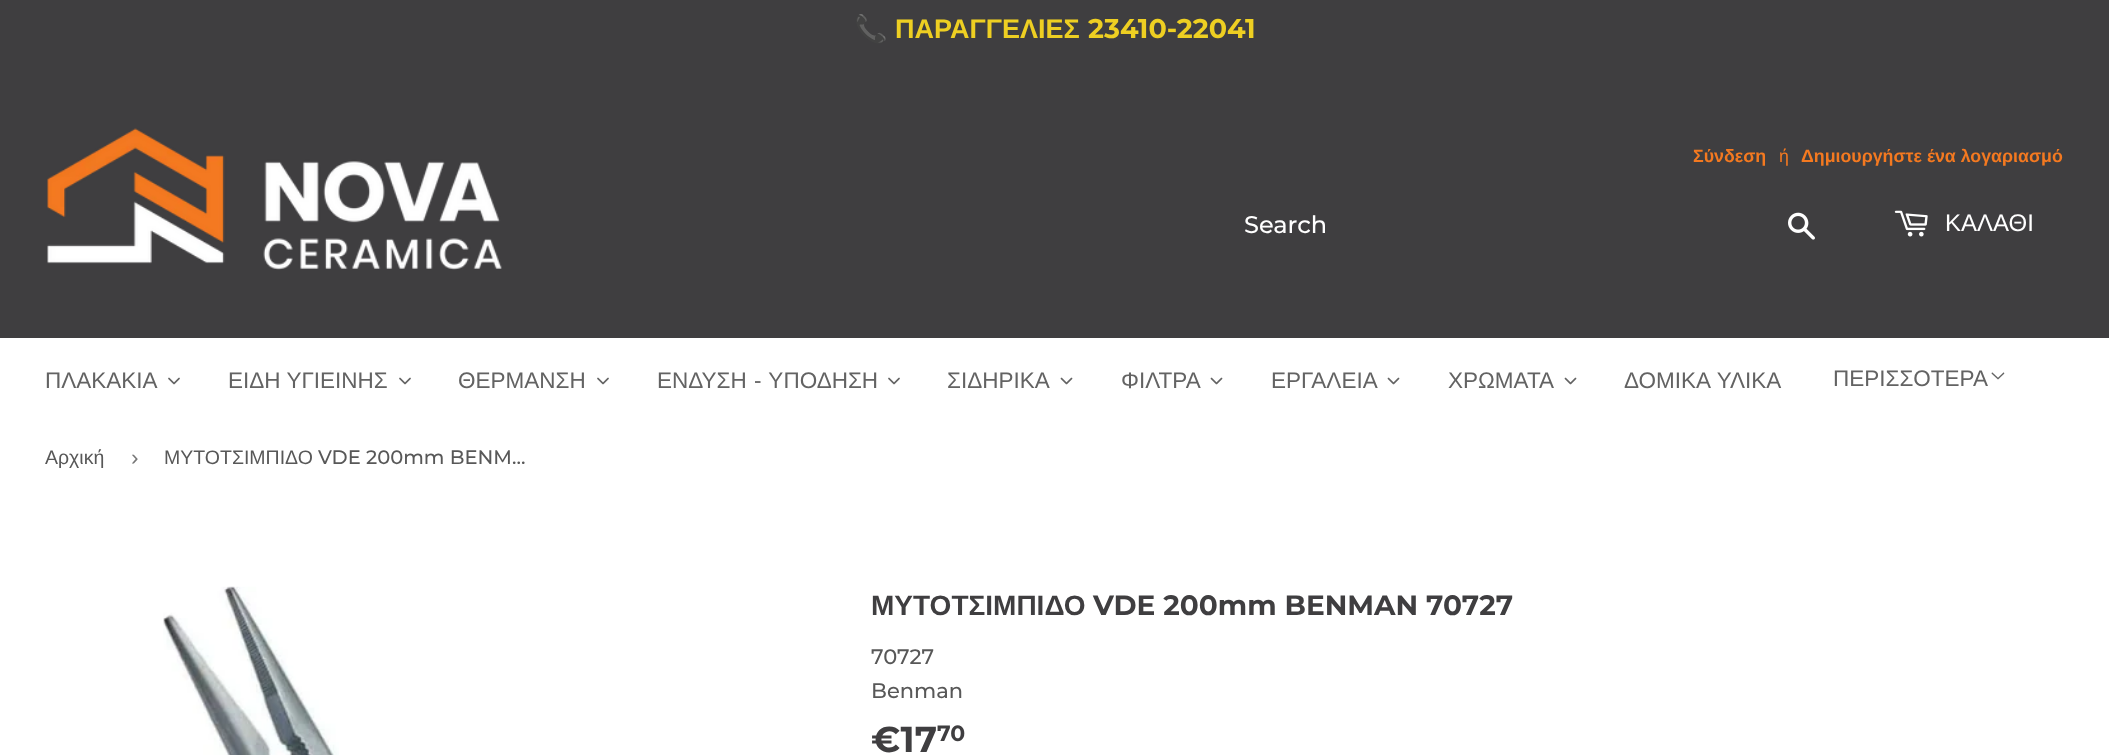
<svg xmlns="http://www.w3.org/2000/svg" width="2109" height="755">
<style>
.a{font:bold 27px Noto Color Emoji;fill:#eecf22}
.b{font:bold 27px Liberation Sans;fill:#eecf22}
.c{font:bold 27px Montserrat;fill:#eecf22}
.d{font:bold 17.8px Liberation Sans;fill:#f47920}
.e{font:17.8px Liberation Sans;fill:#f47920}
.f{font:500 24px Montserrat;fill:#fff}
.g{font:24px Liberation Sans;fill:#fff}
.h{font:22.5px Liberation Sans;fill:#636363}
.i{font:19.5px Liberation Sans;fill:#585858}
.j{font:22.5px Liberation Sans;fill:#767676}
.k{font:500 19.5px Montserrat;fill:#585858}
.l{font:bold 28px Liberation Sans;fill:#3f3e40}
.m{font:bold 28px Montserrat;fill:#3f3e40}
.n{font:500 21px Montserrat;fill:#585858}
.o{font:bold 36px Montserrat;fill:#3f3e40}
.p{font:bold 22px Montserrat;fill:#3f3e40}
</style>
<rect width="100%" height="100%" fill="#fff"/>
<path fill="#3f3e40" d="M0 0h2109v338H0z"/>
<image href="1.png" x="47" y="128" width="455" height="142"/>
<image href="2.png" x="1788" y="212" width="27" height="28"/>
<image href="3.png" x="1894" y="210" width="34" height="27"/>
<image href="4.png" x="168" y="377" width="12" height="8"/>
<image href="4.png" x="399" y="377" width="12" height="8"/>
<image href="4.png" x="597" y="377" width="12" height="8"/>
<image href="4.png" x="888" y="377" width="12" height="8"/>
<image href="5.png" x="1060" y="377" width="13" height="8"/>
<image href="5.png" x="1210" y="377" width="13" height="8"/>
<image href="5.png" x="1387" y="377" width="13" height="8"/>
<image href="5.png" x="1564" y="377" width="13" height="8"/>
<image href="6.png" x="1991" y="372" width="14" height="8"/>
<image href="7.png" x="163" y="586" width="176" height="169"/>
<text class="a" x="854" y="38">📞</text>
<text class="b" x="895" y="38">ΠΑΡΑΓΓΕΛΙΕΣ</text>
<text class="c" x="1088" y="38">23410-22041</text>
<text class="d" x="1693" y="162">Σύνδεση</text>
<text class="e" x="1779" y="162">ή</text>
<text class="d" x="1801" y="162">Δημιουργήστε ένα λογαριασμό</text>
<text class="f" x="1244" y="233">Search</text>
<text class="g" x="1945" y="231">ΚΑΛΑΘΙ</text>
<text class="h" x="45" y="388">ΠΛΑΚΑΚΙΑ</text>
<text class="h" x="228" y="388">ΕΙΔΗ ΥΓΙΕΙΝΗΣ</text>
<text class="h" x="458" y="388">ΘΕΡΜΑΝΣΗ</text>
<text class="h" x="657" y="388" word-spacing="1">ΕΝΔΥΣΗ - ΥΠΟΔΗΣΗ</text>
<text class="h" x="947" y="388">ΣΙΔΗΡΙΚΑ</text>
<text class="h" x="1121" y="388">ΦΙΛΤΡΑ</text>
<text class="h" x="1271" y="388">ΕΡΓΑΛΕΙΑ</text>
<text class="h" x="1448" y="388">ΧΡΩΜΑΤΑ</text>
<text class="h" x="1624" y="388" word-spacing="1">ΔΟΜΙΚΑ ΥΛΙΚΑ</text>
<text class="h" x="1833" y="386">ΠΕΡΙΣΣΟΤΕΡΑ</text>
<text class="i" x="45" y="464">Αρχική</text>
<text class="j" x="131" y="465">›</text>
<text class="i" x="164" y="464">ΜΥΤΟΤΣΙΜΠΙΔΟ</text>
<text class="k" x="318" y="464">VDE 200mm BENM…</text>
<text class="l" x="871" y="615">ΜΥΤΟΤΣΙΜΠΙΔΟ</text>
<text class="m" x="1093" y="615">VDE 200mm BENMAN 70727</text>
<text class="n" x="871" y="664">70727</text>
<text class="n" x="871" y="698">Benman</text>
<text class="o" x="871" y="752">€17</text>
<text class="p" x="937" y="741">70</text>
</svg>
